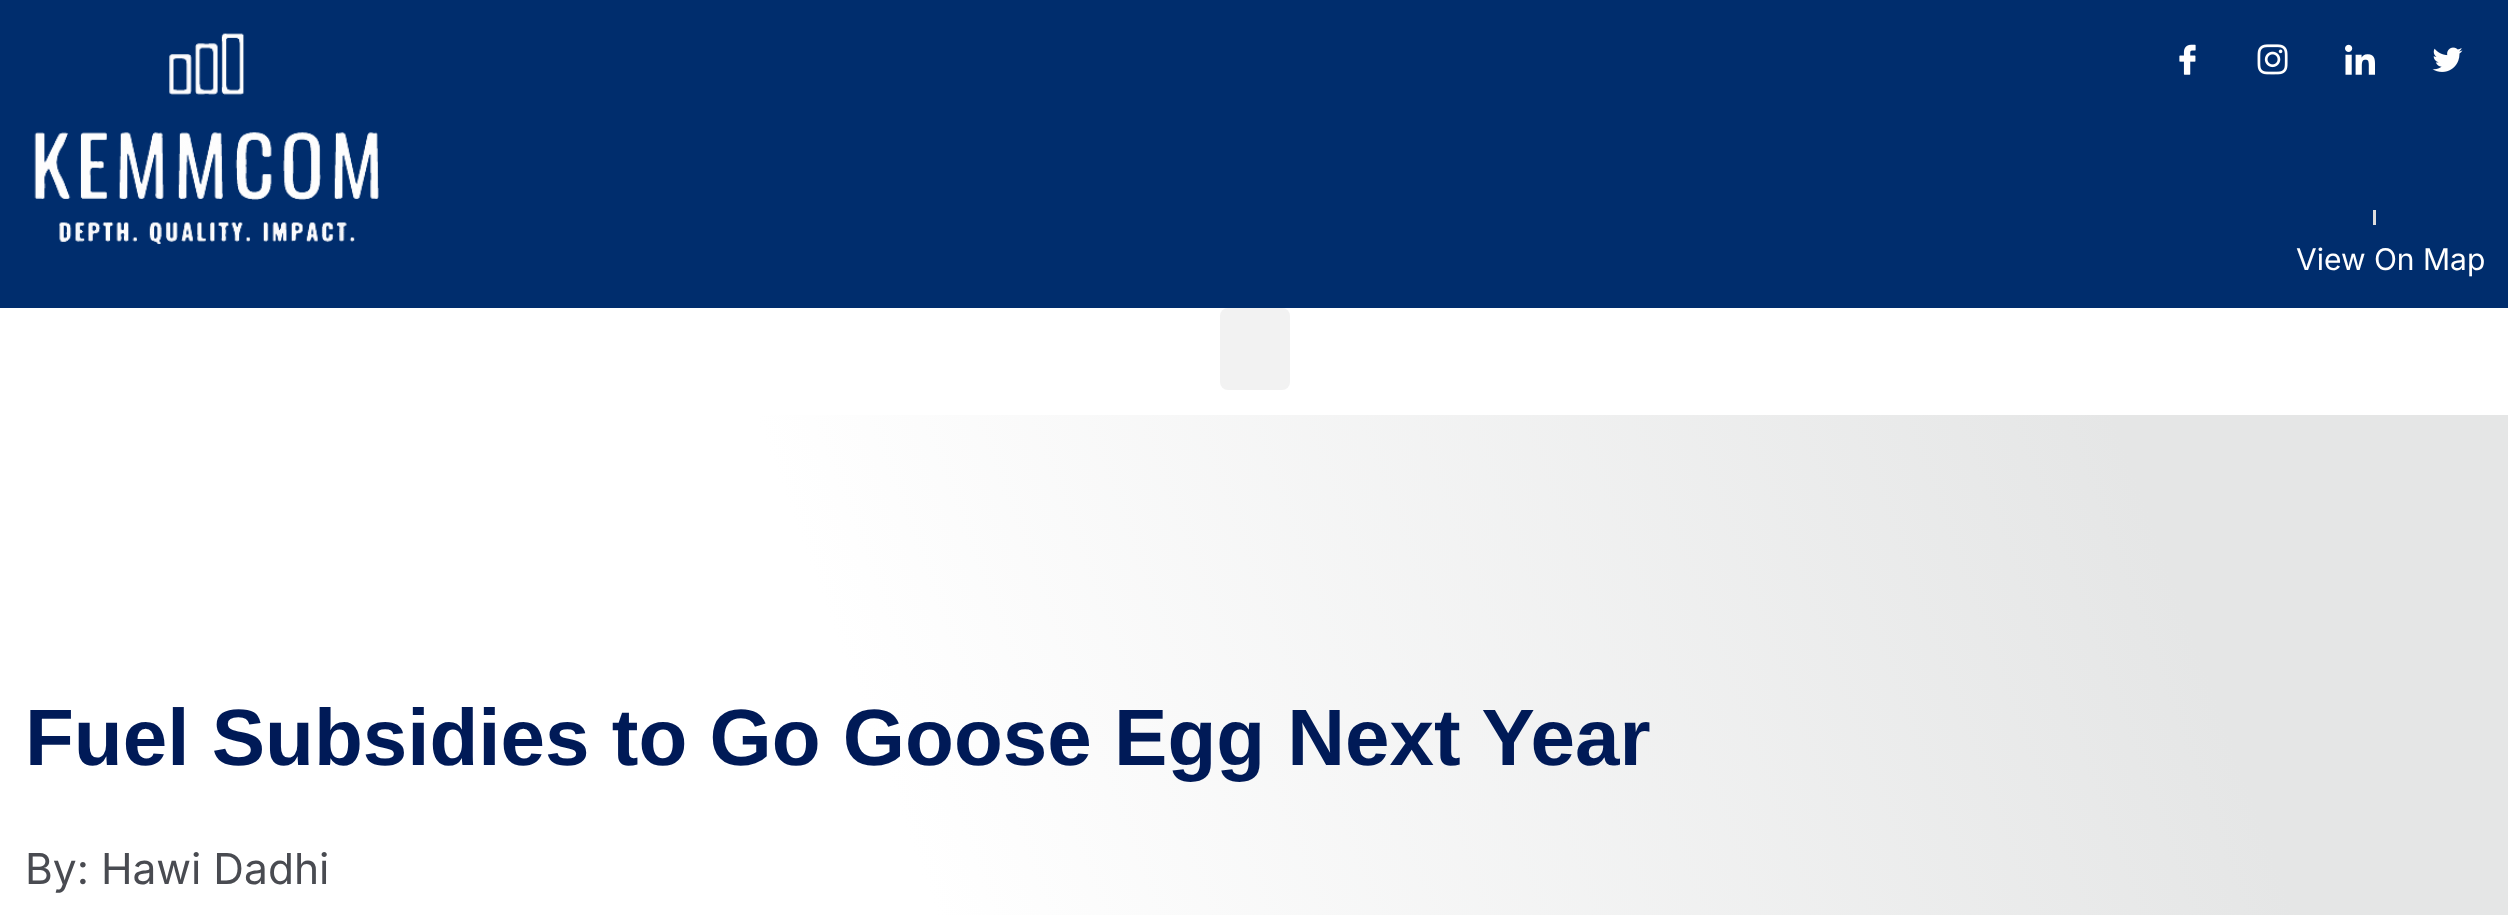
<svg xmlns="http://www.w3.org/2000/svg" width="2508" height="915">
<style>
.a{font:30px Inter;fill:#fff}
.b{font:bold 80px Liberation Sans;fill:#001a57}
.c{font:42.5px Inter;fill:#494b51}
</style>
<defs>
<linearGradient id="g1" gradientUnits="userSpaceOnUse" x1="5" y1="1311" x2="2505" y2="401"><stop offset="0.38" stop-color="#fff"/><stop offset="0.86" stop-color="#e5e6e6"/></linearGradient>
</defs>
<rect width="100%" height="100%" fill="#002d6d"/>
<image href="1.png" x="34" y="33" width="345" height="212"/>
<image href="2.png" x="2179" y="44" width="17" height="31"/>
<image href="3.png" x="2257" y="44" width="31" height="31"/>
<image href="4.png" x="2345" y="44" width="30" height="31"/>
<image href="5.png" x="2432" y="47" width="31" height="25"/>
<path fill="#ddd" d="M2373 210h3v15H2373z"/>
<path fill="#fff" d="M0 308h2508v107H0z"/>
<rect fill="#f2f2f2" x="1220" y="308" width="70" height="82" rx="8"/>
<path fill="url(#g1)" d="M0 415h2508v500H0z"/>
<text class="a" x="2296" y="270">View On Map</text>
<text class="b" x="25" y="765">Fuel Subsidies to Go Goose Egg Next Year</text>
<text class="c" x="25" y="884">By: Hawi Dadhi</text>
</svg>
